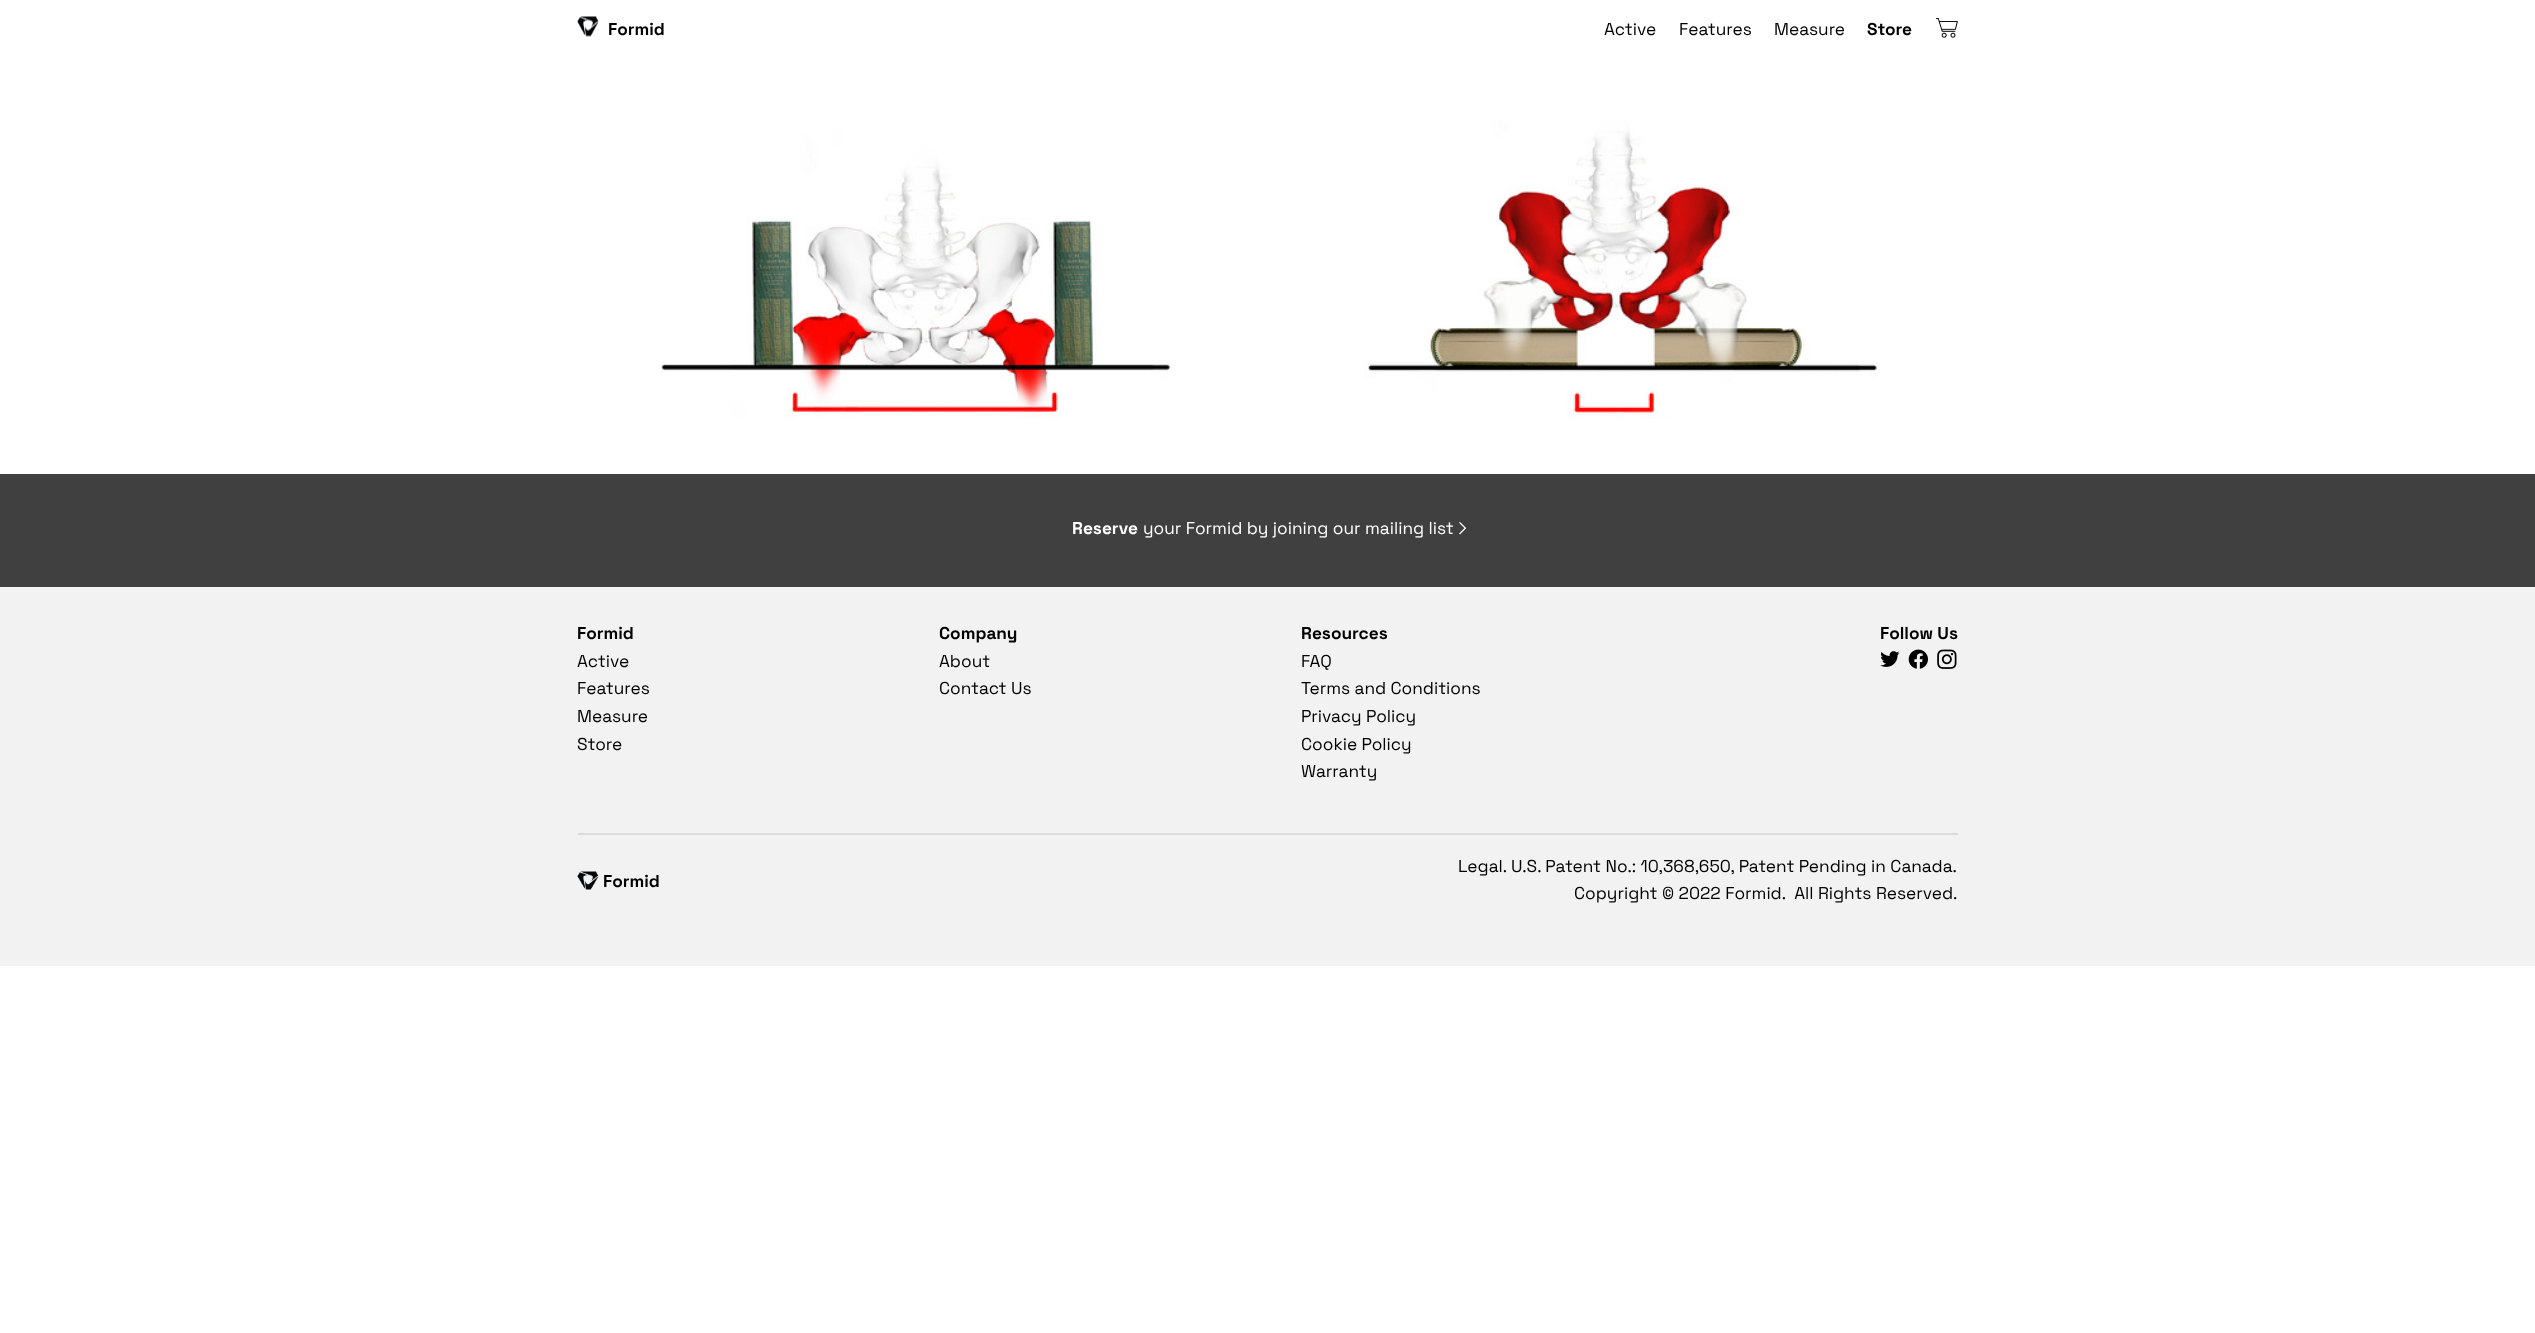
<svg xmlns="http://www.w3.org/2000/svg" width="2535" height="1333">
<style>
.a{font:bold 17.25px Space Grotesk;fill:#000}
.b{font:17.25px Space Grotesk;fill:#000}
.c{font:bold 17.25px Space Grotesk;fill:#fff}
.d{font:17.25px Space Grotesk;fill:#fff}
</style>
<rect width="100%" height="100%" fill="#fff"/>
<image href="1.png" x="577" y="16" width="22" height="21"/>
<image href="2.png" x="1935" y="18" width="23" height="20"/>
<image href="3.png" x="661" y="120" width="1216" height="299"/>
<path fill="#404040" d="M0 474h2535v113H0z"/>
<image href="4.png" x="1459" y="522" width="8" height="13"/>
<path fill="#f2f2f2" d="M0 587h2535v379H0z"/>
<image href="5.png" x="1880" y="651" width="20" height="16"/>
<image href="6.png" x="1908" y="649" width="20" height="20"/>
<image href="7.png" x="1937" y="649" width="20" height="20"/>
<path fill="#dbdbdb" d="M578 833h1380v2H578z"/>
<image href="8.png" x="577" y="871" width="22" height="19"/>
<text class="a" x="608" y="35">Formid</text>
<text class="b" x="1604" y="35">Active</text>
<text class="b" x="1679" y="35">Features</text>
<text class="b" x="1774" y="35">Measure</text>
<text class="a" x="1867" y="35">Store</text>
<text class="c" x="1072" y="534">Reserve</text>
<text class="d" x="1143" y="534">your Formid by joining our mailing list</text>
<text class="a" x="577" y="639">Formid</text>
<text class="b" x="577" y="667">Active</text>
<text class="b" x="577" y="694">Features</text>
<text class="b" x="577" y="722">Measure</text>
<text class="b" x="577" y="750">Store</text>
<text class="a" x="939" y="639">Company</text>
<text class="b" x="939" y="667">About</text>
<text class="b" x="939" y="694">Contact Us</text>
<text class="a" x="1301" y="639">Resources</text>
<text class="b" x="1301" y="667">FAQ</text>
<text class="b" x="1301" y="694">Terms and Conditions</text>
<text class="b" x="1301" y="722">Privacy Policy</text>
<text class="b" x="1301" y="750">Cookie Policy</text>
<text class="b" x="1301" y="777">Warranty</text>
<text class="a" x="1880" y="639">Follow Us</text>
<text class="a" x="603" y="887">Formid</text>
<text class="b" x="1458" y="872">Legal. U.S. Patent No.: 10,368,650, Patent Pending in Canada.</text>
<text class="b" xml:space="preserve" x="1574" y="899">Copyright © 2022 Formid.  All Rights Reserved.</text>
</svg>
